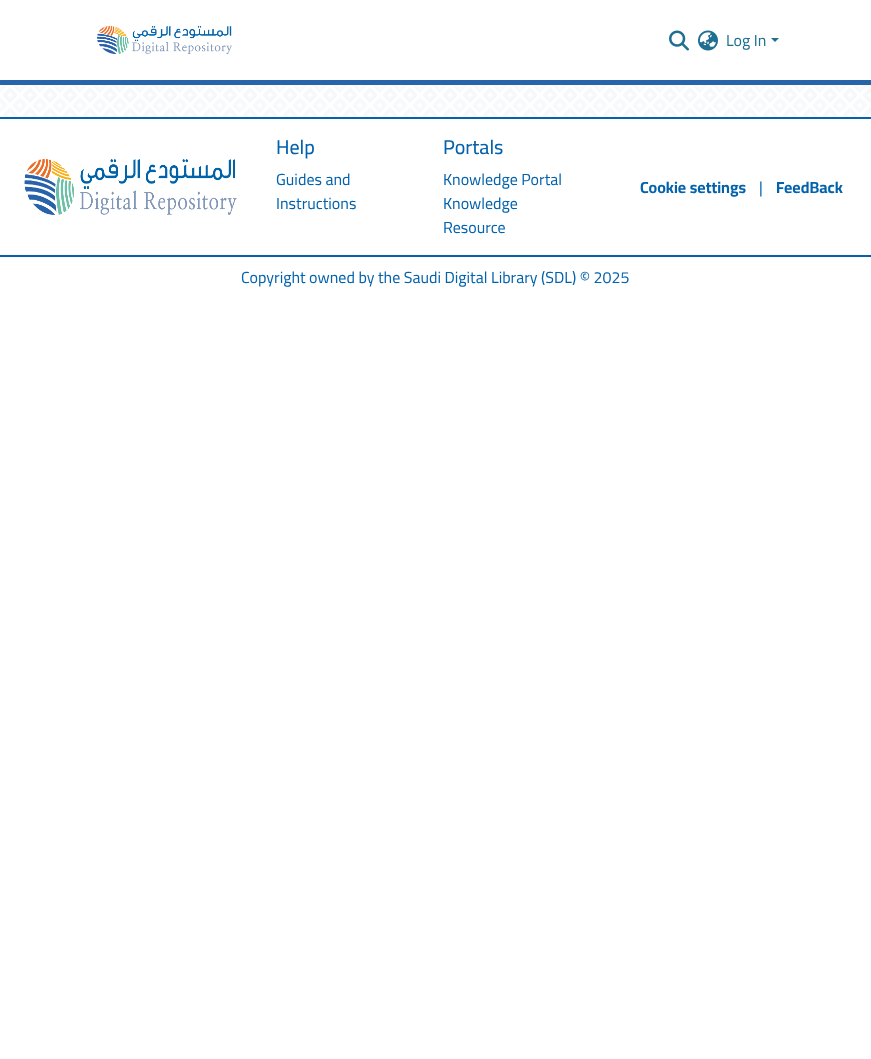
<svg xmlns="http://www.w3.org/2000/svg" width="871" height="1059">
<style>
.a{font:16px Cairo;fill:#1e6f90}
.b{font:500 20px Cairo;fill:#0362ac}
.c{font:16px Cairo;fill:#0362ac}
.d{font:bold 16px Cairo;fill:#0362ac}
</style>
<rect width="100%" height="100%" fill="#fff"/>
<path fill="#2764a8" d="M0 80h871v5H0z"/>
<image href="1.png" x="96" y="25" width="136" height="30"/>
<image href="2.png" x="669" y="30" width="20" height="21"/>
<image href="3.png" x="698" y="30" width="20" height="21"/>
<path fill="#1e6f90" d="M771 38h8l-4 4z"/>
<image href="4.png" x="0" y="85" width="871" height="32"/>
<path fill="#0362ac" d="M0 117h871v2H0z"/>
<path fill="#0362ac" d="M0 255h871v2H0z"/>
<image href="5.png" x="24" y="159" width="213" height="56"/>
<text class="a" x="726" y="46">Log In</text>
<text class="b" x="276" y="154">Help</text>
<text class="c" x="276" y="185">Guides and</text>
<text class="c" x="276" y="209">Instructions</text>
<text class="b" x="443" y="154">Portals</text>
<text class="c" x="443" y="185">Knowledge Portal</text>
<text class="c" x="443" y="209">Knowledge</text>
<text class="c" x="443" y="233">Resource</text>
<text class="d" x="640" y="193">Cookie settings</text>
<text class="c" x="759" y="193">|</text>
<text class="d" x="776" y="193">FeedBack</text>
<text class="c" x="241" y="283">Copyright owned by the Saudi Digital Library (SDL) © 2025</text>
</svg>
